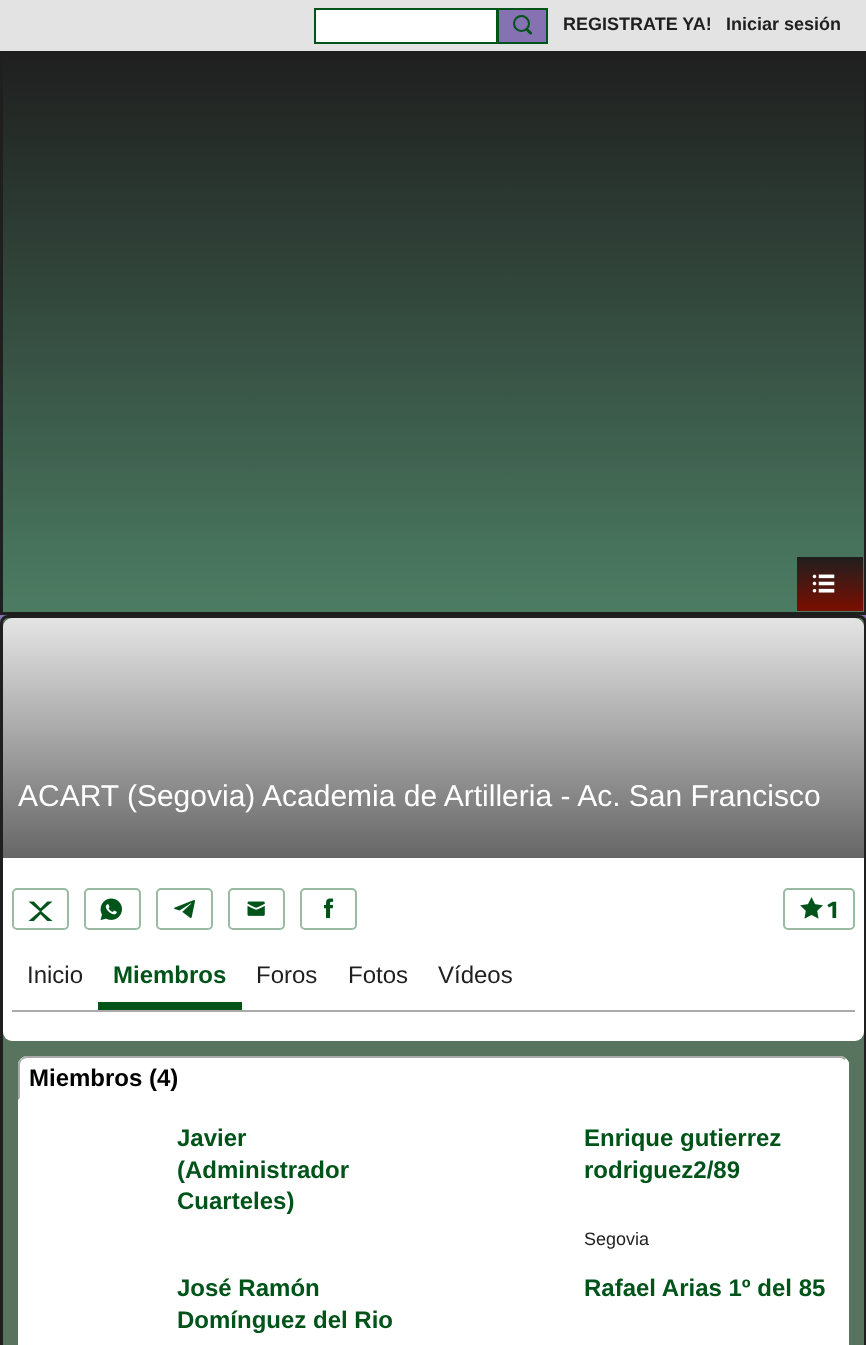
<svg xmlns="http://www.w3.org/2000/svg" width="866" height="1345">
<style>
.a{font:bold 18px Liberation Sans;fill:#1f1f1f}
.b{font:30px Liberation Sans;fill:#fff}
.c{font:bold 24px Fira Sans;fill:#005319}
.d{font:24px Liberation Sans;fill:#1f1f1f}
.e{font:bold 24px Liberation Sans;fill:#005319}
.f{font:bold 24px Liberation Sans;fill:#000}
.g{font:18px Liberation Sans;fill:#1f1f1f}
</style>
<defs>
<linearGradient id="g1" gradientUnits="userSpaceOnUse" x1="434" y1="54" x2="434" y2="612"><stop offset="0" stop-color="#1f1f1f"/><stop offset="1" stop-color="#4c7d63"/></linearGradient>
<linearGradient id="g2" gradientUnits="userSpaceOnUse" x1="830" y1="557" x2="830" y2="611"><stop offset="0" stop-color="#1f1f1f"/><stop offset="1" stop-color="#7b0e00"/></linearGradient>
<linearGradient id="g3" gradientUnits="userSpaceOnUse" x1="434" y1="567" x2="434" y2="858"><stop offset="0" stop-color="#000" stop-opacity="0"/><stop offset="1" stop-color="#000" stop-opacity="0.6"/></linearGradient>
</defs>
<rect width="100%" height="100%" fill="#8672b2"/>
<path fill="#e3e3e3" d="M0 0h866v51H0z"/>
<path fill="#fff" stroke="#005319" stroke-width="2" d="M315 9h182v34H315z"/>
<path fill="#8672b2" stroke="#005319" stroke-width="2" d="M498 9h49v34H498z"/>
<circle fill="none" stroke="#005319" stroke-width="2" cx="521.5" cy="23.5" r="7.5"/>
<path fill="#005319" d="M528.5 29l3.5 3.5c.5 1-1 2.5-2 2l-4-4c-.5-1.5 1.5-3 2.5-1.5z"/>
<path fill="url(#g1)" d="M3 54h861v558H3z"/>
<path fill="none" stroke="#1f1f1f" stroke-width="3" d="M1.5 52.5h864v561H1.5z"/>
<path fill="url(#g2)" d="M797 557h66v54H797z"/>
<image href="1.png" x="812" y="574" width="23" height="19"/>
<rect fill="#58735e" stroke="#1f1f1f" stroke-width="3" x="1.5" y="616.5" width="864" height="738" rx="6.5"/>
<rect fill="#fff" x="3" y="618" width="861" height="423" rx="9"/>
<path fill="url(#g3)" d="M12 618h843c5 0 9 4 9 9v231h-861v-231c0-5 4-9 9-9z"/>
<rect fill="none" stroke="#99baa3" stroke-width="2" x="13" y="889" width="55" height="40" rx="4"/>
<image href="2.png" x="28" y="901" width="25" height="20"/>
<rect fill="none" stroke="#99baa3" stroke-width="2" x="85" y="889" width="55" height="40" rx="4"/>
<image href="3.png" x="100" y="898" width="22" height="22"/>
<rect fill="none" stroke="#99baa3" stroke-width="2" x="157" y="889" width="55" height="40" rx="4"/>
<image href="4.png" x="174" y="900" width="21" height="18"/>
<rect fill="none" stroke="#99baa3" stroke-width="2" x="229" y="889" width="55" height="40" rx="4"/>
<image href="5.png" x="247" y="901" width="18" height="15"/>
<rect fill="none" stroke="#99baa3" stroke-width="2" x="301" y="889" width="55" height="40" rx="4"/>
<image href="6.png" x="324" y="898" width="10" height="21"/>
<rect fill="none" stroke="#99baa3" stroke-width="2" x="784" y="889" width="70" height="40" rx="4"/>
<image href="7.png" x="800" y="897" width="23" height="22"/>
<path fill="#aaa" d="M12 1010h843v2H12z"/>
<path fill="#005319" d="M98 1002h144v8H98z"/>
<rect fill="#fff" x="18" y="1056" width="831" height="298" rx="9"/>
<path fill="#aaa" d="M27 1056c-3 0-5 1-6 3l1 1c1-1 3-2 5-2h814l4 2l1-1c-1-2-4-3-6-3z"/>
<path fill="#fff" d="M849 1100v-35c0-3-1-5-3-6l-1 1c2 1 3 3 3 5v33z"/>
<path fill="#aaa" d="M18 1100l2-2v-33c0-2 1-4 2-5l-1-1c-2 1-3 3-3 6z"/>
<text class="a" x="563" y="30">REGISTRATE YA!</text>
<text class="a" x="726" y="30">Iniciar sesión</text>
<text class="b" x="18" y="806">ACART (Segovia) Academia de Artilleria - Ac. San Francisco</text>
<text class="c" x="827" y="918">1</text>
<text class="d" x="27" y="983">Inicio</text>
<text class="e" x="113" y="983">Miembros</text>
<text class="d" x="256" y="983">Foros</text>
<text class="d" x="348" y="983">Fotos</text>
<text class="d" x="438" y="983">Vídeos</text>
<text class="f" x="29" y="1086">Miembros (4)</text>
<text class="e" x="177" y="1146">Javier</text>
<text class="e" x="177" y="1178">(Administrador</text>
<text class="e" x="177" y="1209">Cuarteles)</text>
<text class="e" x="584" y="1146">Enrique gutierrez</text>
<text class="e" x="584" y="1178">rodriguez2/89</text>
<text class="g" x="584" y="1245">Segovia</text>
<text class="e" x="177" y="1296">José Ramón</text>
<text class="e" x="177" y="1328">Domínguez del Rio</text>
<text class="e" x="584" y="1296">Rafael Arias 1º del 85</text>
</svg>
